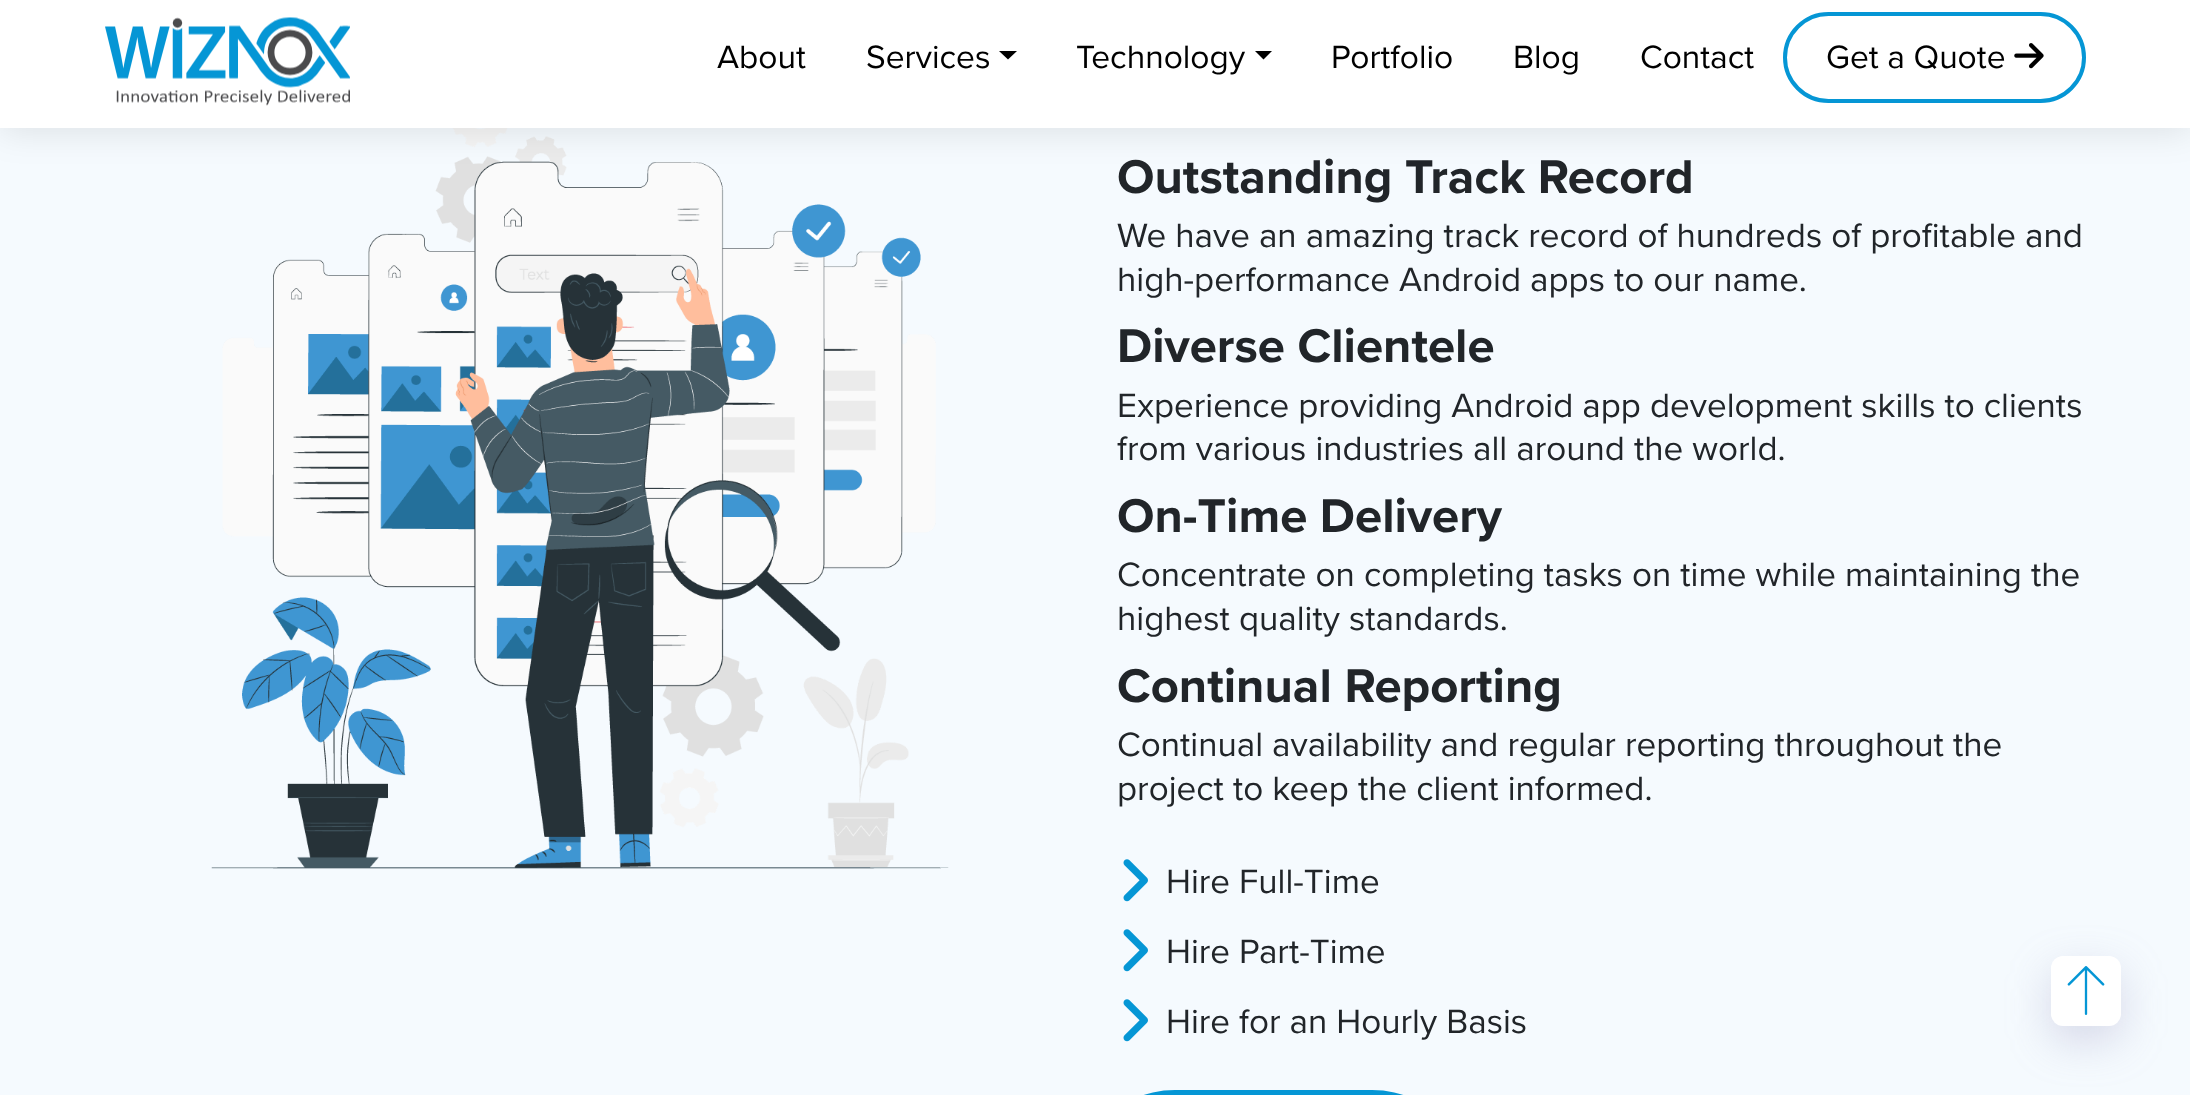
<svg xmlns="http://www.w3.org/2000/svg" width="2190" height="1095">
<style>
.a{font:33.5px Proxima Nova;fill:#000}
.b{font:bold 49px Proxima Nova;fill:#212529}
.c{font:35px Proxima Nova;fill:#212529}
</style>
<rect width="100%" height="100%" fill="#f5fafe"/>
<image href="3.png" x="211" y="128" width="738" height="741"/>
<path fill="#0000001a" filter="blur(17.5px)" d="M0 4h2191v127H0z"/>
<path fill="#fff" d="M0 0h2190v128H0z"/>
<image href="1.png" x="105" y="17" width="245" height="89"/>
<path fill="#000" d="M999 51h18l-9 8.5z"/>
<path fill="#000" d="M1255 51h17l-8.5 8.5z"/>
<rect fill="none" stroke="#0596d5" stroke-width="4" x="1785" y="14" width="299" height="87" rx="43.5"/>
<image href="2.png" x="2014" y="43" width="30" height="26"/>
<image href="4.png" x="1123" y="859" width="25" height="43"/>
<image href="4.png" x="1123" y="929" width="25" height="43"/>
<image href="4.png" x="1123" y="999" width="25" height="43"/>
<rect fill="#0596d5" x="1117" y="1090" width="313" height="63" rx="58"/>
<rect fill="#8480b147" filter="blur(22px)" x="2051" y="971" width="70" height="70" rx="12"/>
<rect fill="#fff" x="2051" y="956" width="70" height="70" rx="12"/>
<image href="5.png" x="2067" y="966" width="38" height="49"/>
<text class="a" x="717" y="68">About</text>
<text class="a" x="866" y="68">Services</text>
<text class="a" x="1076" y="68">Technology</text>
<text class="a" x="1331" y="68">Portfolio</text>
<text class="a" x="1513" y="68">Blog</text>
<text class="a" x="1640" y="68">Contact</text>
<text class="a" x="1826" y="68">Get a Quote</text>
<text class="b" x="1117" y="193">Outstanding Track Record</text>
<text class="c" x="1117" y="247">We have an amazing track record of hundreds of profitable and</text>
<text class="c" x="1117" y="291">high-performance Android apps to our name.</text>
<text class="b" x="1117" y="362">Diverse Clientele</text>
<text class="c" x="1117" y="417">Experience providing Android app development skills to clients</text>
<text class="c" x="1117" y="460">from various industries all around the world.</text>
<text class="b" x="1117" y="532">On-Time Delivery</text>
<text class="c" x="1117" y="586">Concentrate on completing tasks on time while maintaining the</text>
<text class="c" x="1117" y="630">highest quality standards.</text>
<text class="b" x="1117" y="702">Continual Reporting</text>
<text class="c" x="1117" y="756">Continual availability and regular reporting throughout the</text>
<text class="c" x="1117" y="800">project to keep the client informed.</text>
<text class="c" x="1166" y="893">Hire Full-Time</text>
<text class="c" x="1166" y="963">Hire Part-Time</text>
<text class="c" x="1166" y="1033">Hire for an Hourly Basis</text>
</svg>
